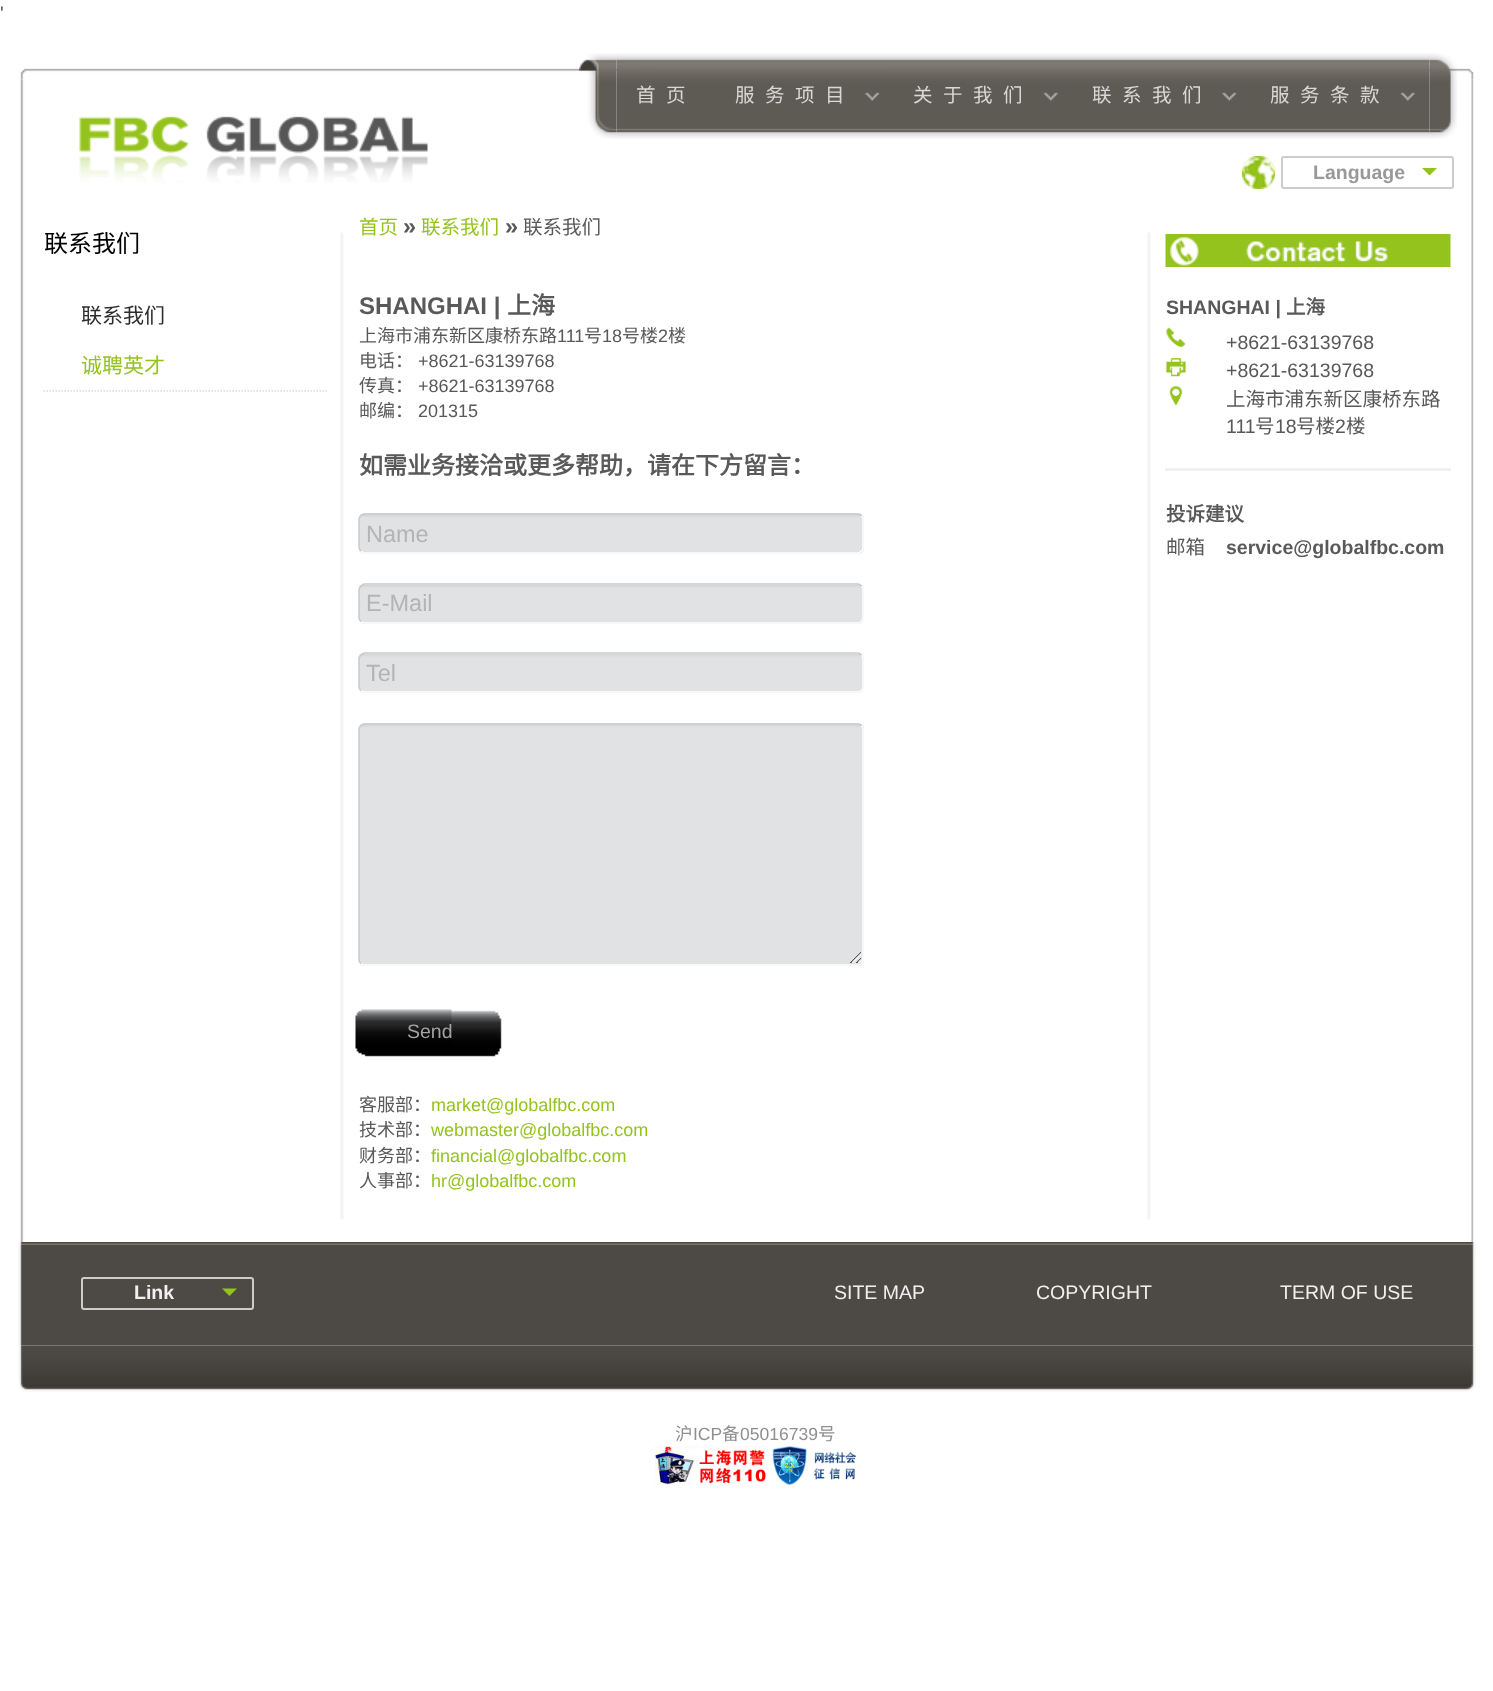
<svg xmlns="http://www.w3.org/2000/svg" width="1493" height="1691">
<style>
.a{font:19.5px Liberation Sans;fill:#595959}
.b{font:19.5px Noto Sans CJK SC;letter-spacing:10.5px;fill:#d9d8d5}
.c{font:bold 19.5px Liberation Sans;fill:#999}
.d{font:24px Noto Sans CJK SC;fill:#000}
.e{font:21px Noto Sans CJK SC;fill:#2c2c2c}
.f{font:21px Noto Sans CJK SC;fill:#95c31e}
.g{font:19.5px Noto Sans CJK SC;fill:#95c31e}
.h{font:bold 23.5px Liberation Sans;fill:#595959}
.i{font:19.5px Noto Sans CJK SC;fill:#595959}
.j{font:bold 24px Liberation Sans;fill:#595959}
.k{font:bold 24px Noto Sans CJK SC;fill:#595959}
.l{font:18px Noto Sans CJK SC;fill:#595959}
.m{font:18px Liberation Sans;fill:#595959}
.n{font:23.5px Liberation Sans;fill:#b3b4b4}
.o{font:19.5px Liberation Sans;fill:#a2a2a2}
.p{font:18px Liberation Sans;fill:#95c31e}
.q{font:bold 19.5px Liberation Sans;fill:#595959}
.r{font:bold 19.5px Noto Sans CJK SC;fill:#595959}
.s{font:bold 19.5px Liberation Sans;fill:#f0f0f0}
.t{font:19.5px Liberation Sans;fill:#f0f0f0}
.u{font:17.5px Noto Sans CJK SC;fill:#8f8f8f}
.v{font:17.5px Liberation Sans;fill:#8f8f8f}
</style>
<rect width="100%" height="100%" fill="#fff"/>
<image href="2.png" x="20" y="79" width="1454" height="131"/>
<image href="1.png" x="20" y="68" width="1454" height="12"/>
<image href="3.png" x="579" y="53" width="38" height="86"/>
<image href="4.png" x="616" y="53" width="814" height="86"/>
<image href="5.png" x="865" y="92" width="14" height="9"/>
<image href="6.png" x="1043" y="92" width="15" height="9"/>
<image href="7.png" x="1222" y="92" width="14" height="9"/>
<image href="6.png" x="1400" y="92" width="15" height="9"/>
<image href="8.png" x="1429" y="53" width="28" height="86"/>
<image href="9.png" x="79" y="116" width="349" height="67"/>
<image href="10.png" x="1242" y="156" width="33" height="33"/>
<rect fill="none" stroke="#ccc" stroke-width="2" x="1282" y="157" width="171" height="31" rx="2"/>
<path fill="#95c31e" d="M1422 168h15l-7.5 7.5z"/>
<image href="11.png" x="20" y="210" width="1454" height="1032"/>
<image href="12.png" x="340" y="232" width="4" height="988"/>
<path fill="none" stroke="#dbdbdc" stroke-width="1.5" stroke-dasharray="1.5 1.5" d="M43.5 391h285"/>
<image href="13.png" x="1147" y="232" width="4" height="988"/>
<rect fill="#e1e2e3" x="359" y="513" width="505" height="41" rx="6"/>
<image href="14.png" x="358" y="514" width="506" height="38"/>
<path fill="none" stroke="#fff" stroke-width="1.5" d="M861.5 515.5c1 1 1.5 2 1.5 3.5v28.5c0 1.5-.5 2.5-1.5 3.5c-1 1-2 2-3.5 2h-493.5c-1.5 0-2.5-1-3.5-2"/>
<path fill="none" stroke="#c9cacb" stroke-width="1.5" d="M361 551c-1-1-2-2-2-3.5v-28.5c0-1.5 1-2.5 2-3.5c1-1 2-1.5 3.5-1.5h493.5c1.5 0 2.5 .5 3.5 1.5"/>
<image href="15.png" x="358" y="585" width="506" height="39"/>
<path fill="none" stroke="#fff" stroke-width="1.5" d="M861.5 586c1 1 1.5 2 1.5 3.5v28.5c0 1.5-.5 2.5-1.5 3.5c-1 1-2 1.5-3.5 1.5h-493.5c-1.5 0-2.5-.5-3.5-1.5"/>
<path fill="none" stroke="#c9cacb" stroke-width="1.5" d="M361 621.5c-1-1-2-2-2-3.5v-28.5c0-1.5 1-2.5 2-3.5c1-1 2-2 3.5-2h493.5c1.5 0 2.5 1 3.5 2"/>
<image href="15.png" x="358" y="654" width="506" height="39"/>
<path fill="none" stroke="#fff" stroke-width="1.5" d="M861.5 655c1 1 1.5 2 1.5 3.5v28.5c0 1.5-.5 2.5-1.5 3.5c-1 1-2 1.5-3.5 1.5h-493.5c-1.5 0-2.5-.5-3.5-1.5"/>
<path fill="none" stroke="#c9cacb" stroke-width="1.5" d="M361 690.5c-1-1-2-2-2-3.5v-28.5c0-1.5 1-2.5 2-3.5c1-1 2-2 3.5-2h493.5c1.5 0 2.5 1 3.5 2"/>
<rect fill="#e1e2e3" x="359" y="723" width="505" height="243" rx="6"/>
<image href="16.png" x="358" y="724" width="506" height="242"/>
<path fill="none" stroke="#fff" stroke-width="1.5" d="M861.5 725.5c1 1 1.5 2 1.5 3.5v231c0 1.5-.5 2.5-1.5 3.5c-1 1-2 1.5-3.5 1.5h-493.5c-1.5 0-2.5-.5-3.5-1.5"/>
<path fill="none" stroke="#c9cacb" stroke-width="1.5" d="M361 963.5c-1-1-2-2-2-3.5v-231c0-1.5 1-2.5 2-3.5c1-1 2-1.5 3.5-1.5h493.5c1.5 0 2.5 .5 3.5 1.5"/>
<image href="17.png" x="364" y="1010" width="138" height="47"/>
<image href="18.png" x="355" y="1009" width="97" height="46"/>
<image href="19.png" x="1165" y="234" width="286" height="33"/>
<image href="20.png" x="1166" y="327" width="20" height="21"/>
<image href="21.png" x="1165" y="358" width="21" height="19"/>
<image href="22.png" x="1169" y="385" width="14" height="21"/>
<path fill="#f1f1f2" d="M1165 468h286v3H1165z"/>
<image href="23.png" x="18" y="1242" width="1458" height="3"/>
<image href="24.png" x="18" y="1245" width="1458" height="101"/>
<rect fill="none" stroke="#ccc" stroke-width="2" x="82" y="1278" width="171" height="31" rx="2"/>
<path fill="#95c31e" d="M222 1288.5h15l-7.5 7.5z"/>
<image href="25.png" x="18" y="1345" width="1458" height="47"/>
<image href="26.png" x="654" y="1446" width="114" height="39"/>
<image href="27.png" x="772" y="1446" width="85" height="39"/>
<text class="a" x="0" y="20">'</text>
<text class="b" x="636" y="102">首页</text>
<text class="b" x="735" y="102">服务项目</text>
<text class="b" x="913" y="102">关于我们</text>
<text class="b" x="1092" y="102">联系我们</text>
<text class="b" x="1270" y="102">服务条款</text>
<text class="c" x="1313" y="179">Language</text>
<text class="d" x="44" y="252">联系我们</text>
<text class="e" x="81" y="323">联系我们</text>
<text class="f" x="81" y="373">诚聘英才</text>
<text class="g" x="359" y="234">首页</text>
<text class="h" x="403" y="234">»</text>
<text class="g" x="421" y="234">联系我们</text>
<text class="h" x="505" y="234">»</text>
<text class="i" x="523" y="234">联系我们</text>
<text class="j" x="359" y="314">SHANGHAI |</text>
<text class="k" x="507" y="314">上海</text>
<text class="l" x="359" y="342">上海市浦东新区康桥东路</text>
<text class="m" x="557" y="342">111</text>
<text class="l" x="584" y="342">号</text>
<text class="m" x="602" y="342">18</text>
<text class="l" x="622" y="342">号楼</text>
<text class="m" x="658" y="342">2</text>
<text class="l" x="668" y="342">楼</text>
<text class="l" x="359" y="367">电话：</text>
<text class="m" x="418" y="367">+8621-63139768</text>
<text class="l" x="359" y="392">传真：</text>
<text class="m" x="418" y="392">+8621-63139768</text>
<text class="l" x="359" y="417">邮编：</text>
<text class="m" x="418" y="417">201315</text>
<text class="k" x="359" y="474">如需业务接洽或更多帮助，请在下方留言：</text>
<text class="n" x="366" y="542">Name</text>
<text class="n" x="366" y="611">E-Mail</text>
<text class="n" x="366" y="681">Tel</text>
<text class="o" x="407" y="1038">Send</text>
<text class="l" x="359" y="1111">客服部：</text>
<text class="p" x="431" y="1111">market@globalfbc.com</text>
<text class="l" x="359" y="1136">技术部：</text>
<text class="p" x="431" y="1136">webmaster@globalfbc.com</text>
<text class="l" x="359" y="1162">财务部：</text>
<text class="p" x="431" y="1162">financial@globalfbc.com</text>
<text class="l" x="359" y="1187">人事部：</text>
<text class="p" x="431" y="1187">hr@globalfbc.com</text>
<text class="q" x="1166" y="314">SHANGHAI |</text>
<text class="r" x="1286" y="314">上海</text>
<text class="a" x="1226" y="349">+8621-63139768</text>
<text class="a" x="1226" y="377">+8621-63139768</text>
<text class="i" x="1226" y="406">上海市浦东新区康桥东路</text>
<text class="a" x="1226" y="433">111</text>
<text class="i" x="1255" y="433">号</text>
<text class="a" x="1275" y="433">18</text>
<text class="i" x="1296" y="433">号楼</text>
<text class="a" x="1335" y="433">2</text>
<text class="i" x="1346" y="433">楼</text>
<text class="r" x="1166" y="521">投诉建议</text>
<text class="i" x="1166" y="554">邮箱</text>
<text class="q" x="1226" y="554">service@globalfbc.com</text>
<text class="s" x="134" y="1299">Link</text>
<text class="t" x="834" y="1299">SITE MAP</text>
<text class="t" x="1036" y="1299">COPYRIGHT</text>
<text class="t" x="1280" y="1299">TERM OF USE</text>
<text class="u" x="675" y="1440">沪</text>
<text class="v" x="693" y="1440">ICP</text>
<text class="u" x="722" y="1440">备</text>
<text class="v" x="740" y="1440">05016739</text>
<text class="u" x="818" y="1440">号</text>
</svg>
